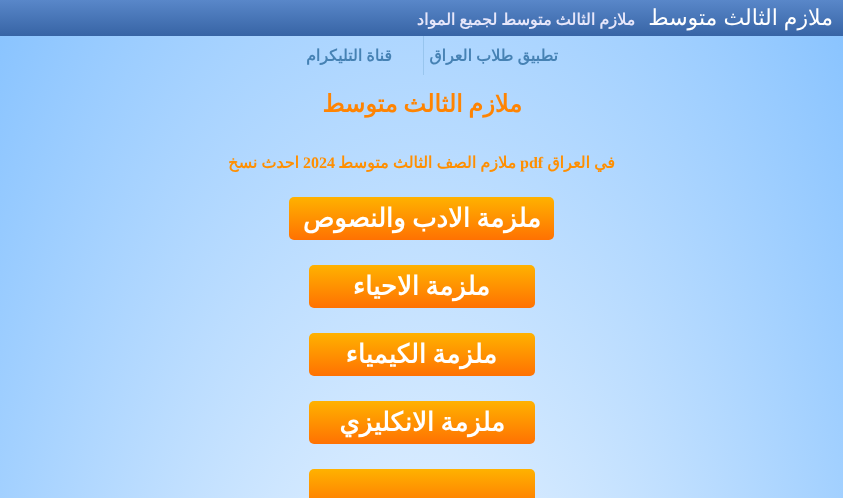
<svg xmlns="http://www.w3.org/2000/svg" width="843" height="498">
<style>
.a{font:22px DejaVu Sans;direction:rtl;fill:#fff}
.b{font:bold 16px DejaVu Sans;direction:rtl;fill:#e6e6fa}
.c{font:bold 16px DejaVu Sans;direction:rtl;fill:#4682b4}
.d{font:bold 24px DejaVu Sans;direction:rtl;fill:#ff8402}
.e{font:bold 16px DejaVu Sans;direction:rtl;fill:#ff8f01}
.f{font:bold 16px Liberation Serif;fill:#ff8f01}
.g{font:bold 26px DejaVu Sans;direction:rtl;fill:#fff}
</style>
<defs>
<radialGradient id="g1" gradientUnits="userSpaceOnUse" cx="0" cy="0" r="1" gradientTransform="matrix(596 0 0 1319 422 933)"><stop offset="0" stop-color="#fff"/><stop offset="1" stop-color="#88c3ff"/></radialGradient>
<radialGradient id="g2" gradientUnits="userSpaceOnUse" cx="0" cy="0" r="1" gradientTransform="matrix(596 0 0 1319 422 933)"><stop offset="0" stop-color="#d7e5ee"/><stop offset="1" stop-color="#78b5ee"/></radialGradient>
<linearGradient id="g3" gradientUnits="userSpaceOnUse" x1="422" y1="0" x2="422" y2="36"><stop offset="0" stop-color="#5987c9"/><stop offset="1" stop-color="#3764a5"/></linearGradient>
<linearGradient id="g4" gradientUnits="userSpaceOnUse" x1="422" y1="197" x2="422" y2="240"><stop offset="0" stop-color="#ffb200"/><stop offset="1" stop-color="#ff7102"/></linearGradient>
<linearGradient id="g5" gradientUnits="userSpaceOnUse" x1="422" y1="265" x2="422" y2="308"><stop offset="0" stop-color="#ffb200"/><stop offset="1" stop-color="#ff7102"/></linearGradient>
<linearGradient id="g6" gradientUnits="userSpaceOnUse" x1="422" y1="333" x2="422" y2="376"><stop offset="0" stop-color="#ffb200"/><stop offset="1" stop-color="#ff7102"/></linearGradient>
<linearGradient id="g7" gradientUnits="userSpaceOnUse" x1="422" y1="401" x2="422" y2="444"><stop offset="0" stop-color="#ffb200"/><stop offset="1" stop-color="#ff7102"/></linearGradient>
<linearGradient id="g8" gradientUnits="userSpaceOnUse" x1="422" y1="469" x2="422" y2="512"><stop offset="0" stop-color="#ffb200"/><stop offset="1" stop-color="#ff7102"/></linearGradient>
</defs>
<rect width="100%" height="100%" fill="#fff"/>
<path fill="url(#g1)" d="M0 36h843v462H0z"/>
<path fill="url(#g2)" d="M423 36h1v39H423z"/>
<path fill="url(#g3)" d="M0 0h843v36H0z"/>
<rect fill="url(#g4)" x="289" y="197" width="265" height="43" rx="5"/>
<rect fill="url(#g5)" x="309" y="265" width="226" height="43" rx="5"/>
<rect fill="url(#g6)" x="309" y="333" width="226" height="43" rx="5"/>
<rect fill="url(#g7)" x="309" y="401" width="226" height="43" rx="5"/>
<rect fill="url(#g8)" x="309" y="469" width="226" height="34" rx="5"/>
<text class="a" x="833" y="25" word-spacing="-1">ملازم الثالث متوسط</text>
<text class="b" x="635" y="25" word-spacing="-1">ملازم الثالث متوسط لجميع المواد</text>
<text class="c" x="558" y="61" word-spacing="-1">تطبيق طلاب العراق</text>
<text class="c" x="392" y="61" word-spacing="-1">قناة التليكرام</text>
<text class="d" x="522" y="112" word-spacing="-2">ملازم الثالث متوسط</text>
<text class="e" x="615" y="168" word-spacing="-1">في العراق</text>
<text class="f" x="520" y="168">pdf</text>
<text class="e" x="516" y="168" word-spacing="-1">ملازم الصف الثالث متوسط</text>
<text class="f" x="303" y="168">2024</text>
<text class="e" x="299" y="168" word-spacing="-1">احدث نسخ</text>
<text class="g" x="541" y="227" word-spacing="-2">ملزمة الادب والنصوص</text>
<text class="g" x="490" y="295" word-spacing="-2">ملزمة الاحياء</text>
<text class="g" x="497" y="363" word-spacing="-2">ملزمة الكيمياء</text>
<text class="g" x="505" y="431" word-spacing="-2">ملزمة الانكليزي</text>
</svg>
